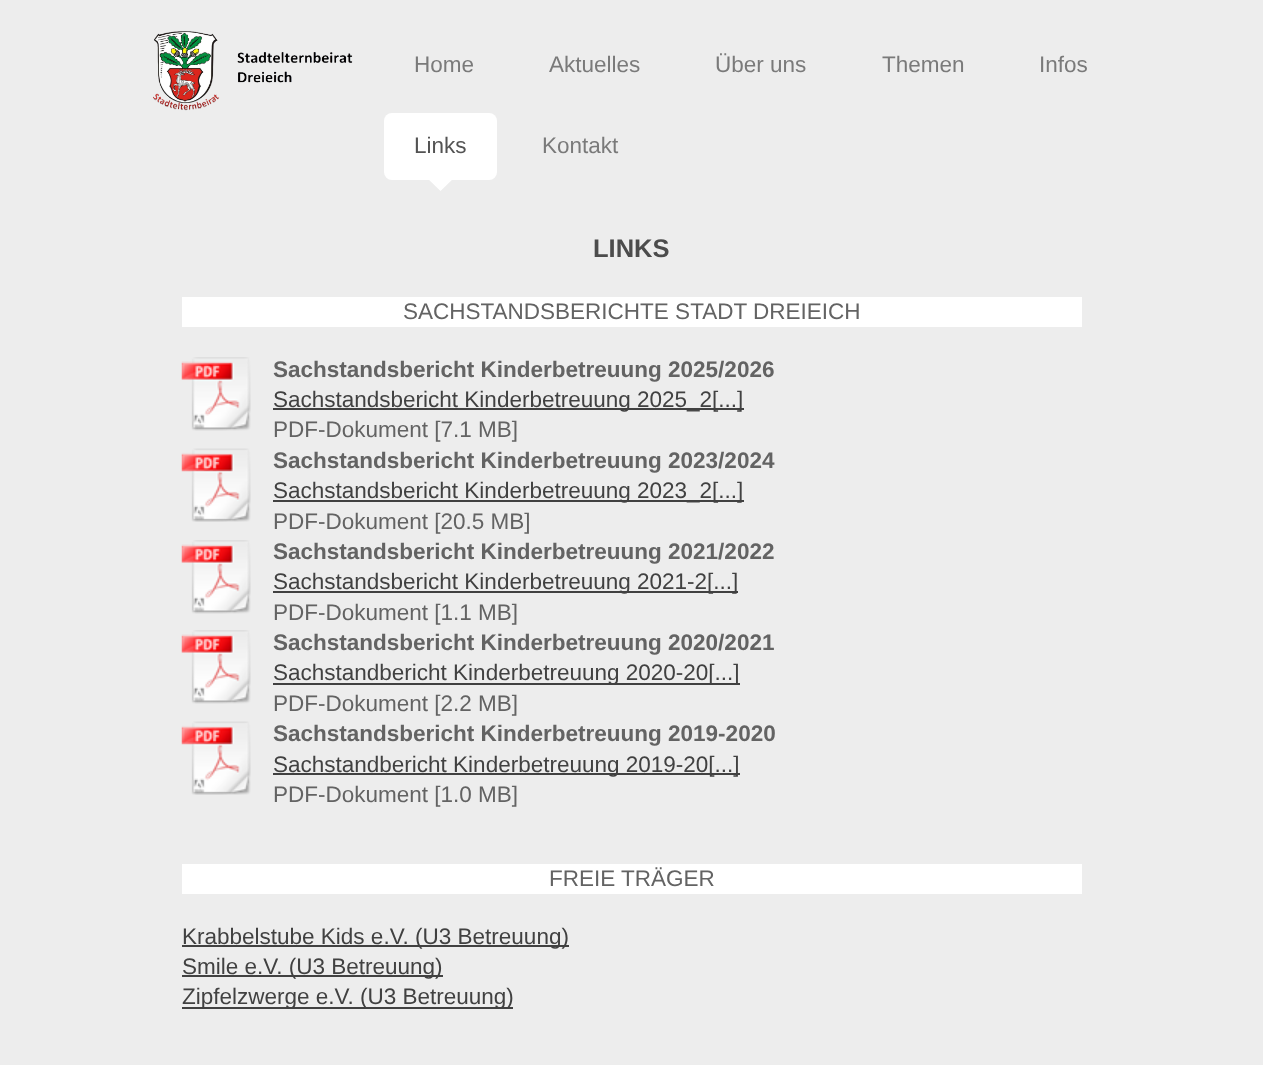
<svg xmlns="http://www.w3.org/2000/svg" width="1263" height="1065">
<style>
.a{font:22.5px Liberation Sans;fill:#7a7a7a}
.b{font:22.5px Liberation Sans;fill:#535353}
.c{font:bold 25.5px Liberation Sans;fill:#4c4c4c}
.d{font:22.5px Liberation Sans;fill:#636363}
.e{font:bold 22.5px Liberation Sans;fill:#636363}
.f{font:22.5px Liberation Sans;fill:#414141}
</style>
<rect width="100%" height="100%" fill="#ededed"/>
<image href="1.png" x="153" y="31" width="200" height="80"/>
<rect fill="#fff" x="384" y="113" width="113" height="67" rx="8"/>
<path fill="#fff" d="M425.5 176.5h30l-15 14.5z"/>
<path fill="#fff" d="M182 297h900v30H182z"/>
<image href="2.png" x="181" y="357" width="70" height="74"/>
<path fill="#414141" d="M273 408h471v2H273z"/>
<image href="3.png" x="181" y="448" width="70" height="74"/>
<path fill="#414141" d="M273 500h471v2H273z"/>
<image href="2.png" x="181" y="540" width="70" height="74"/>
<path fill="#414141" d="M273 591h465v2H273z"/>
<image href="2.png" x="181" y="630" width="70" height="74"/>
<path fill="#414141" d="M273 683h467v2H273z"/>
<image href="3.png" x="181" y="721" width="70" height="74"/>
<path fill="#414141" d="M273 773h467v2H273z"/>
<path fill="#fff" d="M182 864h900v30H182z"/>
<path fill="#414141" d="M182 945h387v2H182z"/>
<path fill="#414141" d="M182 975h261v2H182z"/>
<path fill="#414141" d="M182 1007h331v2H182z"/>
<text class="a" x="414" y="72">Home</text>
<text class="a" x="549" y="72">Aktuelles</text>
<text class="a" x="715" y="72">Über uns</text>
<text class="a" x="882" y="72">Themen</text>
<text class="a" x="1039" y="72">Infos</text>
<text class="b" x="414" y="153">Links</text>
<text class="a" x="542" y="153">Kontakt</text>
<text class="c" x="593" y="257">LINKS</text>
<text class="d" x="403" y="319">SACHSTANDSBERICHTE STADT DREIEICH</text>
<text class="e" x="273" y="377">Sachstandsbericht Kinderbetreuung 2025/2026</text>
<text class="f" x="273" y="407">Sachstandsbericht Kinderbetreuung 2025_2[...]</text>
<text class="d" x="273" y="437">PDF-Dokument [7.1 MB]</text>
<text class="e" x="273" y="468">Sachstandsbericht Kinderbetreuung 2023/2024</text>
<text class="f" x="273" y="498">Sachstandsbericht Kinderbetreuung 2023_2[...]</text>
<text class="d" x="273" y="529">PDF-Dokument [20.5 MB]</text>
<text class="e" x="273" y="559">Sachstandsbericht Kinderbetreuung 2021/2022</text>
<text class="f" x="273" y="589">Sachstandsbericht Kinderbetreuung 2021-2[...]</text>
<text class="d" x="273" y="620">PDF-Dokument [1.1 MB]</text>
<text class="e" x="273" y="650">Sachstandsbericht Kinderbetreuung 2020/2021</text>
<text class="f" x="273" y="680">Sachstandbericht Kinderbetreuung 2020-20[...]</text>
<text class="d" x="273" y="711">PDF-Dokument [2.2 MB]</text>
<text class="e" x="273" y="741">Sachstandsbericht Kinderbetreuung 2019-2020</text>
<text class="f" x="273" y="772">Sachstandbericht Kinderbetreuung 2019-20[...]</text>
<text class="d" x="273" y="802">PDF-Dokument [1.0 MB]</text>
<text class="d" x="549" y="886">FREIE TRÄGER</text>
<text class="f" x="182" y="944">Krabbelstube Kids e.V. (U3 Betreuung)</text>
<text class="f" x="182" y="974">Smile e.V. (U3 Betreuung)</text>
<text class="f" x="182" y="1004">Zipfelzwerge e.V. (U3 Betreuung)</text>
</svg>
